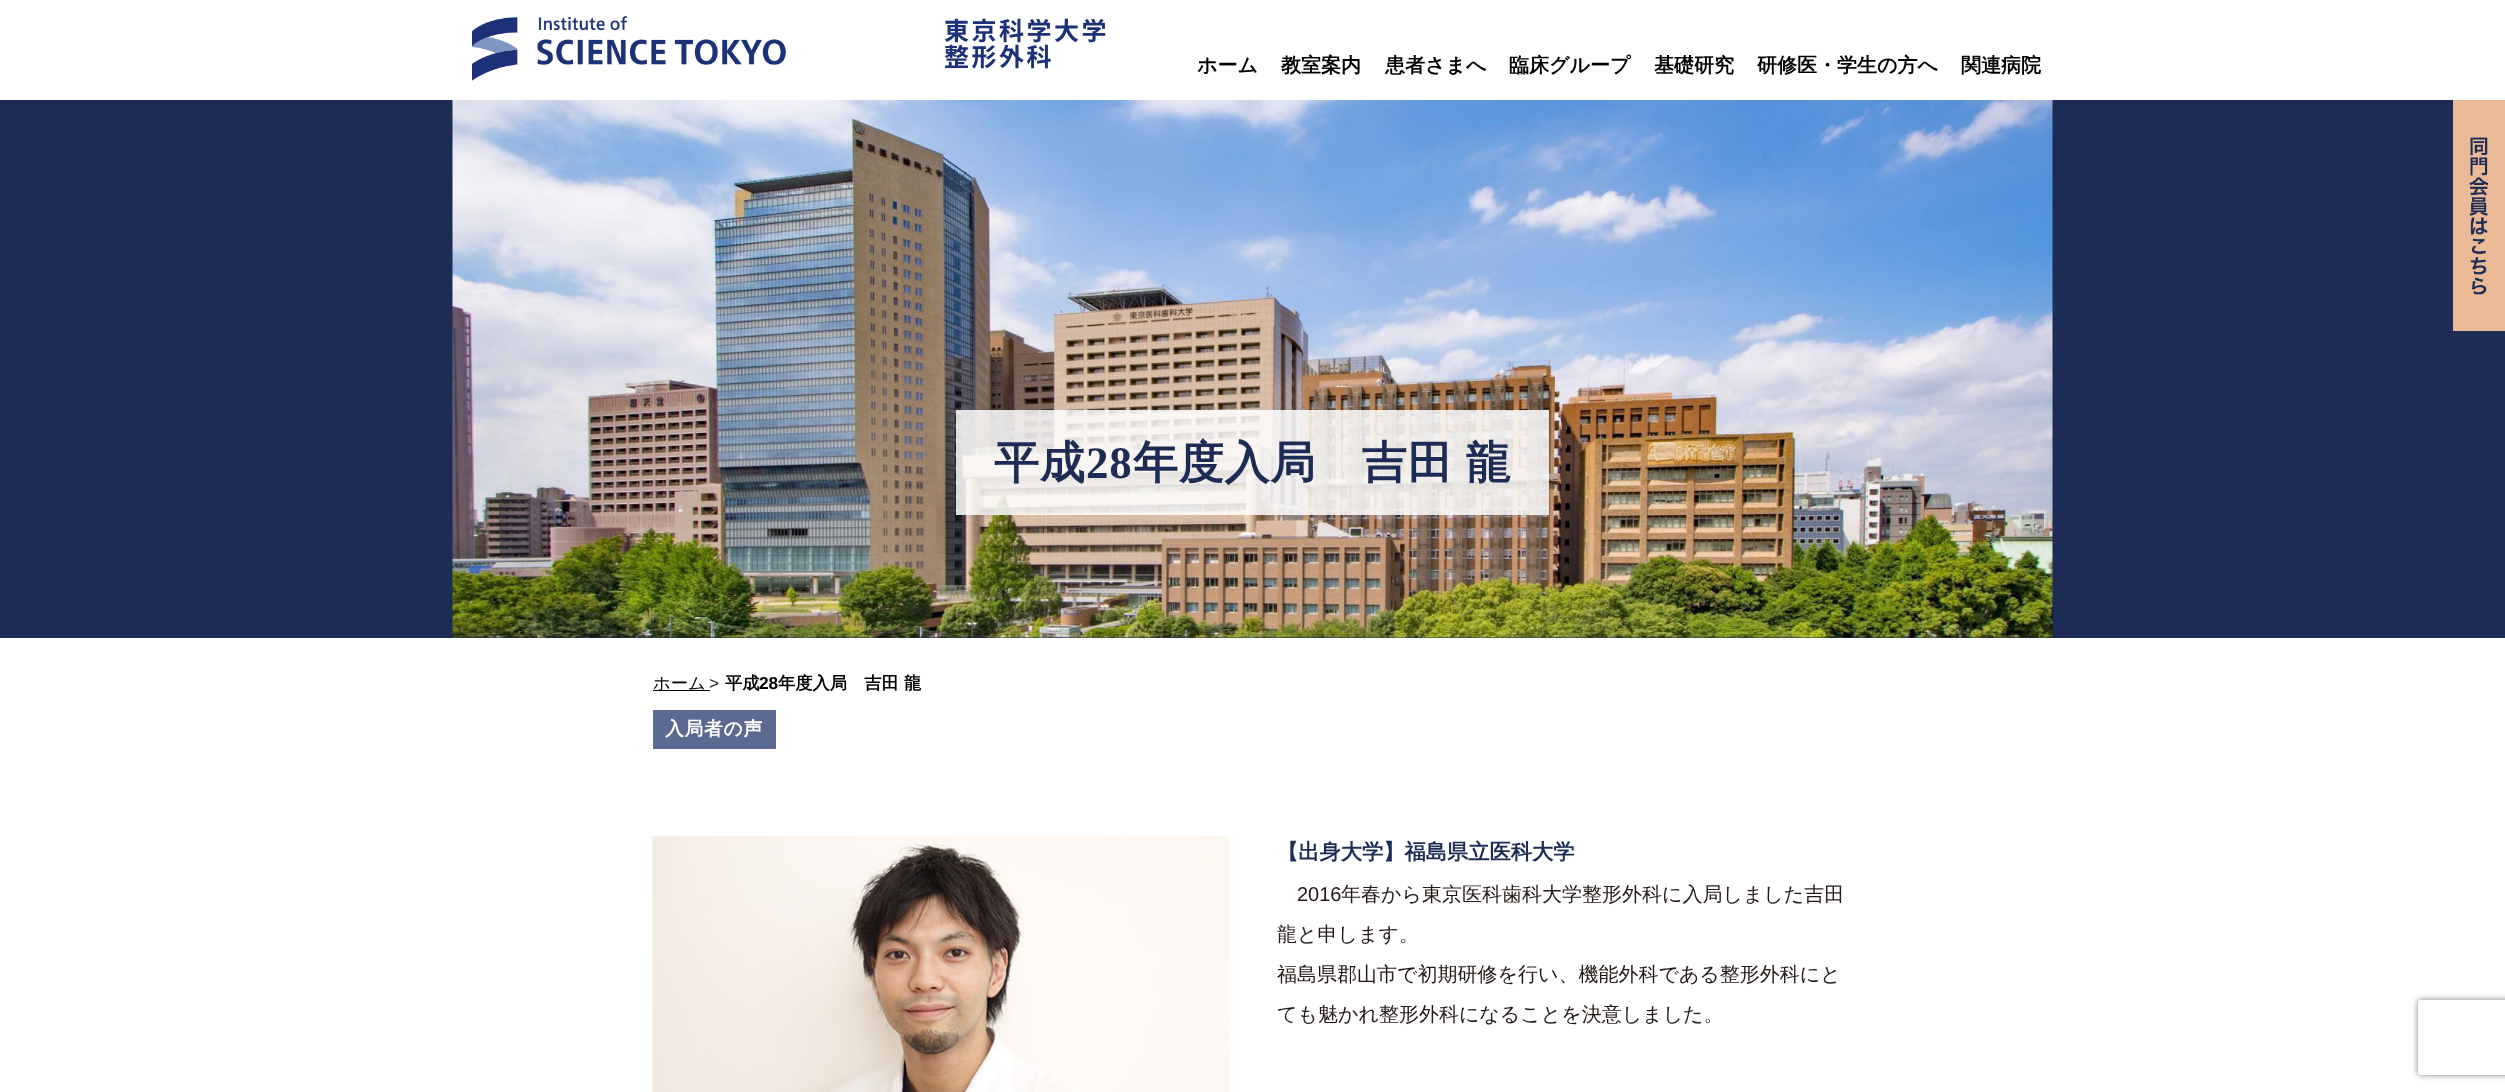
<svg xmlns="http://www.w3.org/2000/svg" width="2505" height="1092">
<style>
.a{font:bold 25px Noto Sans JP;letter-spacing:2.5px;fill:#1c3177}
.b{font:bold 20px WenQuanYi Zen Hei;fill:#000}
.c{font:bold 45px WenQuanYi Zen Hei;letter-spacing:0.75px;fill:#1c2c55}
.d{font:bold 45px Liberation Serif;letter-spacing:0.75px;fill:#1c2c55}
.e{font:500 17.25px WenQuanYi Zen Hei;fill:#000}
.f{font:17.25px Liberation Sans;fill:#231815}
.g{font:bold 17.25px WenQuanYi Zen Hei;fill:#000}
.h{font:bold 17.25px Liberation Sans;fill:#000}
.i{font:bold 18.75px WenQuanYi Zen Hei;letter-spacing:0.75px;fill:#fff}
.j{font:bold 21.25px WenQuanYi Zen Hei;fill:#1c2c55}
.k{font:20px Liberation Sans;fill:#231815}
.l{font:500 20px WenQuanYi Zen Hei;fill:#231815}
</style>
<defs>
<clipPath id="clip1"><path d="M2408 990h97v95h-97zm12.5 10h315c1.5 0 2.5 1 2.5 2.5v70c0 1.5-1 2.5-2.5 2.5h-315c-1.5 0-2.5-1-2.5-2.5v-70c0-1.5 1-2.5 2.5-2.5z" clip-rule="evenodd"/></clipPath>
</defs>
<rect width="100%" height="100%" fill="#fff"/>
<image href="1.png" x="472" y="16" width="314" height="65"/>
<path fill="#1c2c55" d="M0 100h2505v538H0z"/>
<path fill="#eaba97" d="M2453 100h52v231H2453z"/>
<image href="2.png" x="2469" y="137" width="20" height="158"/>
<image href="3.png" x="452" y="100" width="1601" height="538"/>
<path fill="#ffffffd9" d="M956 410h593v105H956z"/>
<path fill="#000" d="M653 690h57v1H653z"/>
<path fill="#5c6a91" d="M653 710h123v39H653z"/>
<image href="4.png" x="652" y="836" width="577" height="256"/>
<g clip-path="url(#clip1)">
<rect fill="#808080" filter="blur(3px)" x="2418" y="1000" width="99" height="75" rx="2.5"/>
</g>
<text class="a" x="944" y="40">東京科学大学</text>
<text class="a" x="944" y="66">整形外科</text>
<text class="b" x="1197" y="72">ホーム</text>
<text class="b" x="1281" y="72">教室案内</text>
<text class="b" x="1385" y="72">患者さまへ</text>
<text class="b" x="1509" y="72">臨床グループ</text>
<text class="b" x="1654" y="72">基礎研究</text>
<text class="b" x="1757" y="72">研修医・学生の方へ</text>
<text class="b" x="1961" y="72">関連病院</text>
<text class="c" x="994" y="478">平成</text>
<text class="d" x="1086" y="478">28</text>
<text class="c" x="1133" y="478" word-spacing="-2">年度入局　吉田 龍</text>
<text class="e" x="653" y="689">ホーム</text>
<text class="f" x="709" y="689">&gt;</text>
<text class="g" x="725" y="689">平成</text>
<text class="h" x="759" y="689">28</text>
<text class="g" x="778" y="689">年度入局　吉田 龍</text>
<text class="i" x="665" y="735">入局者の声</text>
<text class="j" x="1277" y="859">【出身大学】福島県立医科大学</text>
<text class="k" x="1297" y="901">2016</text>
<text class="l" x="1341" y="901">年春から東京医科歯科大学整形外科に入局しました吉田</text>
<text class="l" x="1277" y="941">龍と申します。</text>
<text class="l" x="1277" y="981">福島県郡山市で初期研修を行い、機能外科である整形外科にと</text>
<text class="l" x="1277" y="1021">ても魅かれ整形外科になることを決意しました。</text>
</svg>
